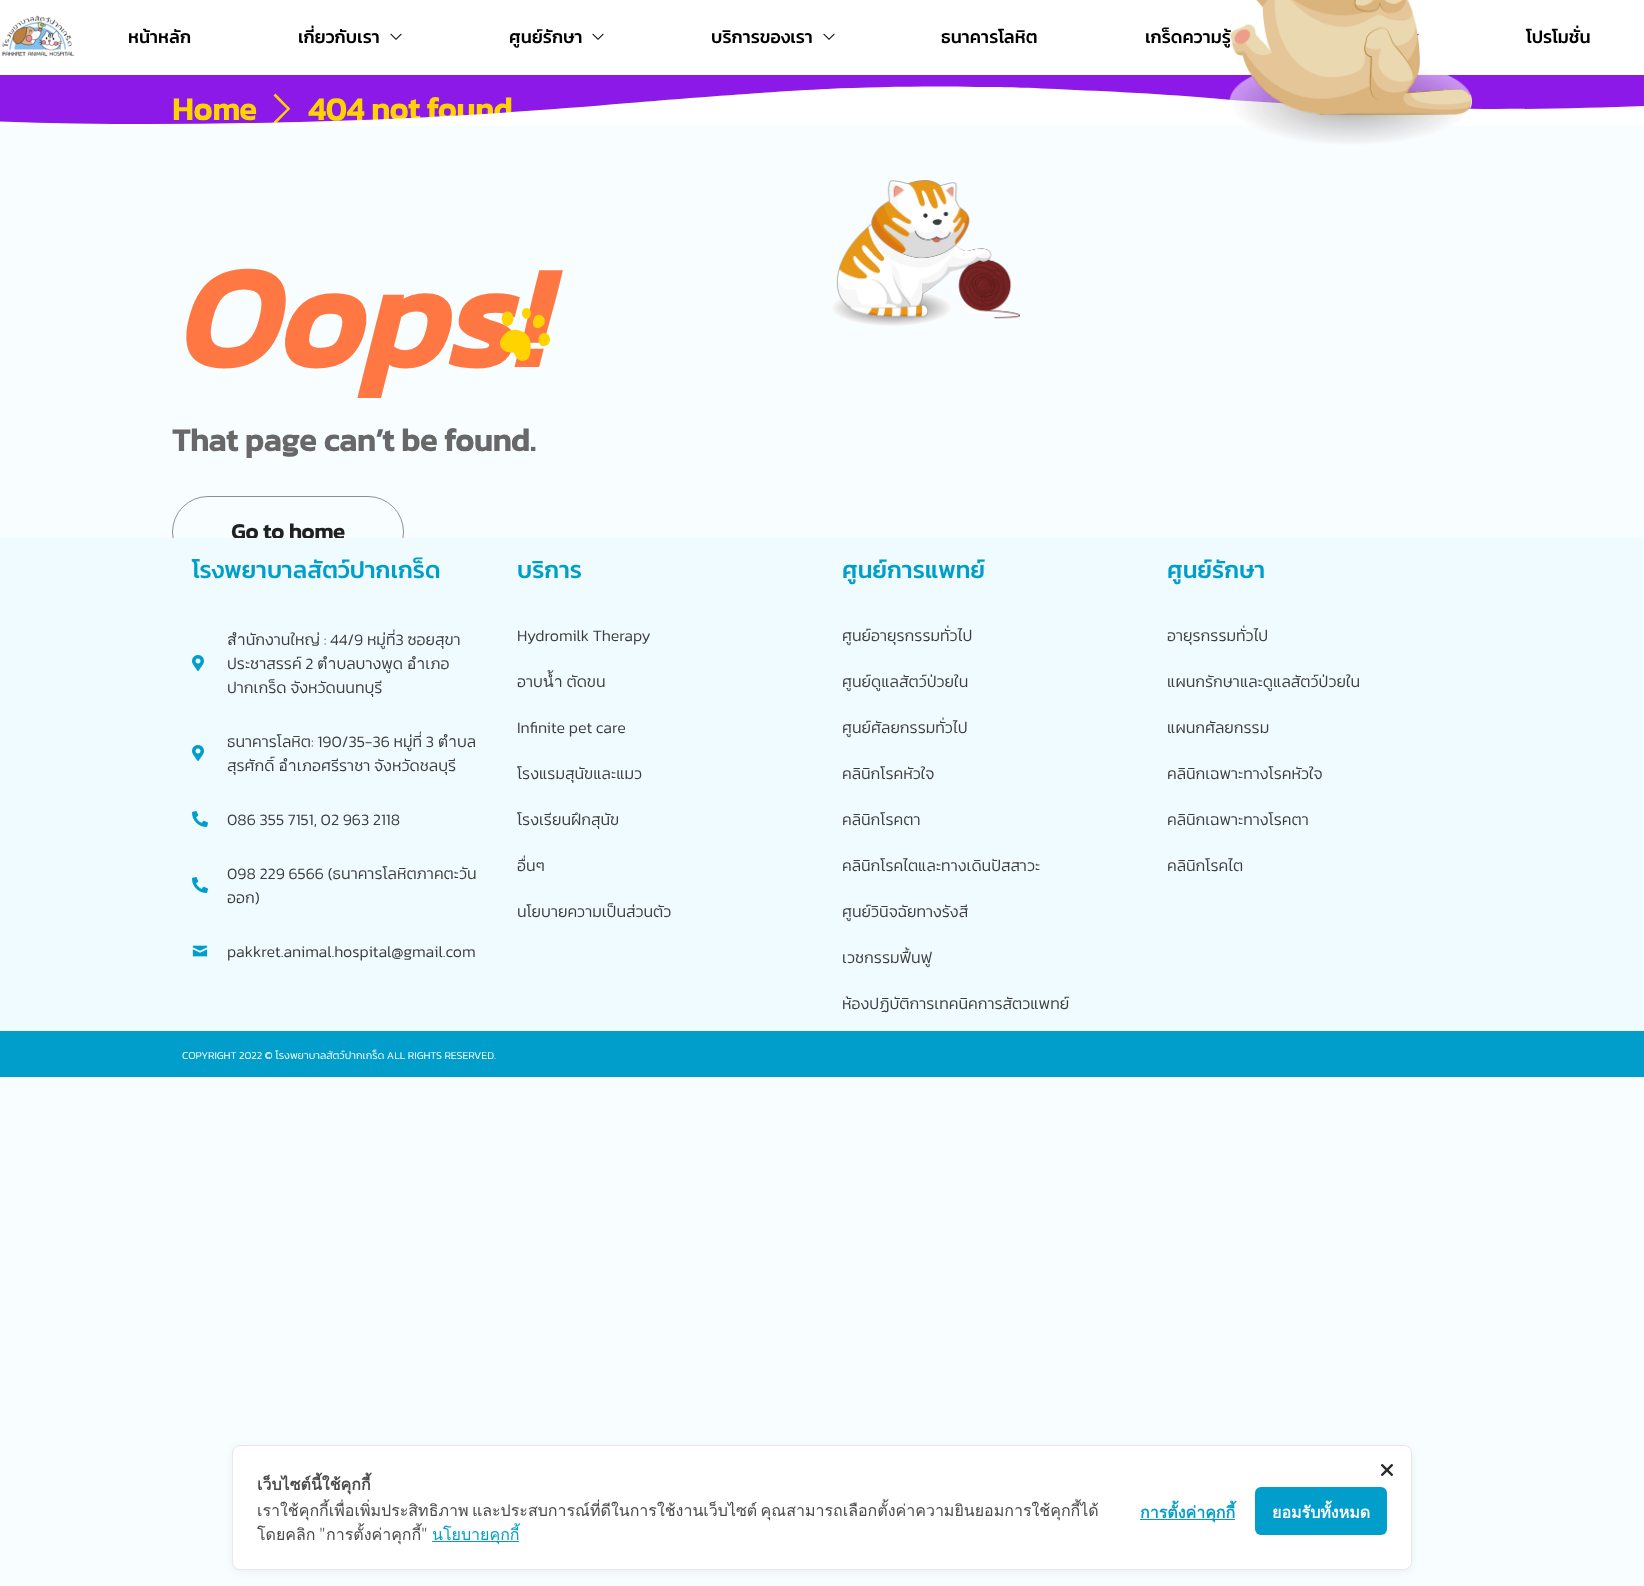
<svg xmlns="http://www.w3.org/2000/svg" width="1644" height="1586">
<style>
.a{font:500 18px Kanit;fill:#000}
.b{font:bold 32px Kanit;fill:#ffd300}
.c{font:italic bold 144px Kanit;fill:#ff7844}
.d{font:bold 32px Kanit;fill:#686868}
.e{font:bold 22px Kanit;fill:#212121}
.f{font:500 24px Kanit;fill:#029ecb}
.g{font:300 16px Kanit;fill:#3e3e3e}
.h{font:300 10.7px Kanit;fill:#fff}
.i{font:bold 16px Loma;fill:#4a4a4a}
.j{font:16px Loma;fill:#4a4a4a}
.k{font:300 16px Noto Sans JP;fill:#4a4a4a}
.l{font:16px Loma;fill:#029ecb}
.m{font:bold 16px Loma;fill:#029ecb}
.n{font:bold 16px Loma;fill:#fff}
</style>
<rect width="100%" height="100%" fill="#f8fdff"/>
<path fill="#fff" d="M0 0h1644v75H0z"/>
<image href="1.png" x="2" y="15" width="73" height="42"/>
<image href="2.png" x="390" y="33" width="12" height="7"/>
<image href="2.png" x="592" y="33" width="12" height="7"/>
<image href="2.png" x="823" y="33" width="12" height="7"/>
<image href="3.png" x="1417" y="33" width="2" height="3"/>
<image href="4.png" x="0" y="75" width="1644" height="50"/>
<path fill="#ffd300" d="M275.5 124l-2-2l13.5-13l-13.5-13.5l2-2l11.5 12c4 3.5 4 3 0 6.5z"/>
<image href="6.png" x="830" y="180" width="190" height="146"/>
<rect fill="none" stroke="#909090" x="172.5" y="496.5" width="231" height="71" rx="35.5"/>
<path fill="#029ecb" d="M0 1031h1644v46H0z"/>
<rect fill="#0000000d" filter="blur(4px)" x="232" y="1447" width="1180" height="125" rx="8"/>
<rect fill="#fff" stroke="#e8e8e8" x="232.5" y="1445.5" width="1179" height="124" rx="7.5"/>
<image href="11.png" x="1381" y="1464" width="12" height="12"/>
<path fill="#029ecb" d="M432 1541h87v1H432z"/>
<path fill="#029ecb" d="M1140 1519h95v1H1140z"/>
<rect fill="#029ecb" x="1255" y="1487" width="132" height="48" rx="6"/>
<text class="a" x="128" y="43">หน้าหลัก</text>
<text class="a" x="298" y="43">เกี่ยวกับเรา</text>
<text class="a" x="509" y="43">ศูนย์รักษา</text>
<text class="a" x="711" y="43">บริการของเรา</text>
<text class="a" x="941" y="43">ธนาคารโลหิต</text>
<text class="a" x="1145" y="43">เกร็ดความรู้</text>
<text class="a" x="1526" y="43">โปรโมชั่น</text>
<text class="b" x="172" y="120">Home</text>
<text class="b" x="308" y="120">404 not found</text>
<path fill="#fff" d="M249 123c117-2 230-7 380-20c58-5 152-12 198-14c47-2 104-3 149-2c20 0 45 0 99 3c54 2 115 6 157 10c81 6 187 8 264 9c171 0 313-13 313-13v30h-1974v-14c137 11 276 14 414 11z"/>
<image href="5.png" x="1229" y="0" width="243" height="145"/>
<text class="c" x="172" y="367">Oops!</text>
<image href="7.png" x="500" y="308" width="50" height="53"/>
<text class="d" x="172" y="451">That page can’t be found.</text>
<text class="e" x="231" y="539">Go to home</text>
<path fill="#f0fbff" d="M0 538h1644v493H0z"/>
<text class="f" x="192" y="578">โรงพยาบาลสัตว์ปากเกร็ด</text>
<image href="8.png" x="192" y="655" width="12" height="16"/>
<text class="g" x="227" y="645">สำนักงานใหญ่ : 44/9 หมู่ที่3 ซอยสุขา</text>
<text class="g" x="227" y="669">ประชาสรรค์ 2 ตำบลบางพูด อำเภอ</text>
<text class="g" x="227" y="693">ปากเกร็ด จังหวัดนนทบุรี</text>
<image href="8.png" x="192" y="745" width="12" height="16"/>
<text class="g" x="227" y="747">ธนาคารโลหิต: 190/35-36 หมู่ที่ 3 ตำบล</text>
<text class="g" x="227" y="771">สุรศักดิ์ อำเภอศรีราชา จังหวัดชลบุรี</text>
<image href="9.png" x="192" y="811" width="16" height="16"/>
<text class="g" x="227" y="825">086 355 7151, 02 963 2118</text>
<image href="9.png" x="192" y="877" width="16" height="16"/>
<text class="g" x="227" y="879">098 229 6566 (ธนาคารโลหิตภาคตะวัน</text>
<text class="g" x="227" y="903">ออก)</text>
<image href="10.png" x="192" y="945" width="16" height="12"/>
<text class="g" x="227" y="957">pakkret.animal.hospital@gmail.com</text>
<text class="f" x="517" y="578">บริการ</text>
<text class="g" x="517" y="641">Hydromilk Therapy</text>
<text class="g" x="517" y="687">อาบน้ำ ตัดขน</text>
<text class="g" x="517" y="733">Infinite pet care</text>
<text class="g" x="517" y="779">โรงแรมสุนัขและแมว</text>
<text class="g" x="517" y="825">โรงเรียนฝึกสุนัข</text>
<text class="g" x="517" y="871">อื่นๆ</text>
<text class="g" x="517" y="917">นโยบายความเป็นส่วนตัว</text>
<text class="f" x="842" y="578">ศูนย์การแพทย์</text>
<text class="g" x="842" y="641">ศูนย์อายุรกรรมทั่วไป</text>
<text class="g" x="842" y="687">ศูนย์ดูแลสัตว์ป่วยใน</text>
<text class="g" x="842" y="733">ศูนย์ศัลยกรรมทั่วไป</text>
<text class="g" x="842" y="779">คลินิกโรคหัวใจ</text>
<text class="g" x="842" y="825">คลินิกโรคตา</text>
<text class="g" x="842" y="871">คลินิกโรคไตและทางเดินปัสสาวะ</text>
<text class="g" x="842" y="917">ศูนย์วินิจฉัยทางรังสี</text>
<text class="g" x="842" y="963">เวชกรรมฟื้นฟู</text>
<text class="g" x="842" y="1009">ห้องปฏิบัติการเทคนิคการสัตวแพทย์</text>
<text class="f" x="1167" y="578">ศูนย์รักษา</text>
<text class="g" x="1167" y="641">อายุรกรรมทั่วไป</text>
<text class="g" x="1167" y="687">แผนกรักษาและดูแลสัตว์ป่วยใน</text>
<text class="g" x="1167" y="733">แผนกศัลยกรรม</text>
<text class="g" x="1167" y="779">คลินิกเฉพาะทางโรคหัวใจ</text>
<text class="g" x="1167" y="825">คลินิกเฉพาะทางโรคตา</text>
<text class="g" x="1167" y="871">คลินิกโรคไต</text>
<text class="h" x="182" y="1059">COPYRIGHT 2022 © โรงพยาบาลสัตว์ปากเกร็ด ALL RIGHTS RESERVED.</text>
<text class="i" x="257" y="1490">เว็บไซต์นี้ใช้คุกกี้</text>
<text class="j" x="257" y="1516" word-spacing="-2">เราใช้คุกกี้เพื่อเพิ่มประสิทธิภาพ และประสบการณ์ที่ดีในการใช้งานเว็บไซต์ คุณสามารถเลือกตั้งค่าความยินยอมการใช้คุกกี้ได้</text>
<text class="j" x="257" y="1540">โดยคลิก</text>
<text class="k" x="319" y="1540">"</text>
<text class="j" x="326" y="1540">การตั้งค่าคุกกี้</text>
<text class="k" x="421" y="1540">"</text>
<text class="l" x="432" y="1540">นโยบายคุกกี้</text>
<text class="m" x="1140" y="1518">การตั้งค่าคุกกี้</text>
<text class="n" x="1272" y="1518">ยอมรับทั้งหมด</text>
</svg>
